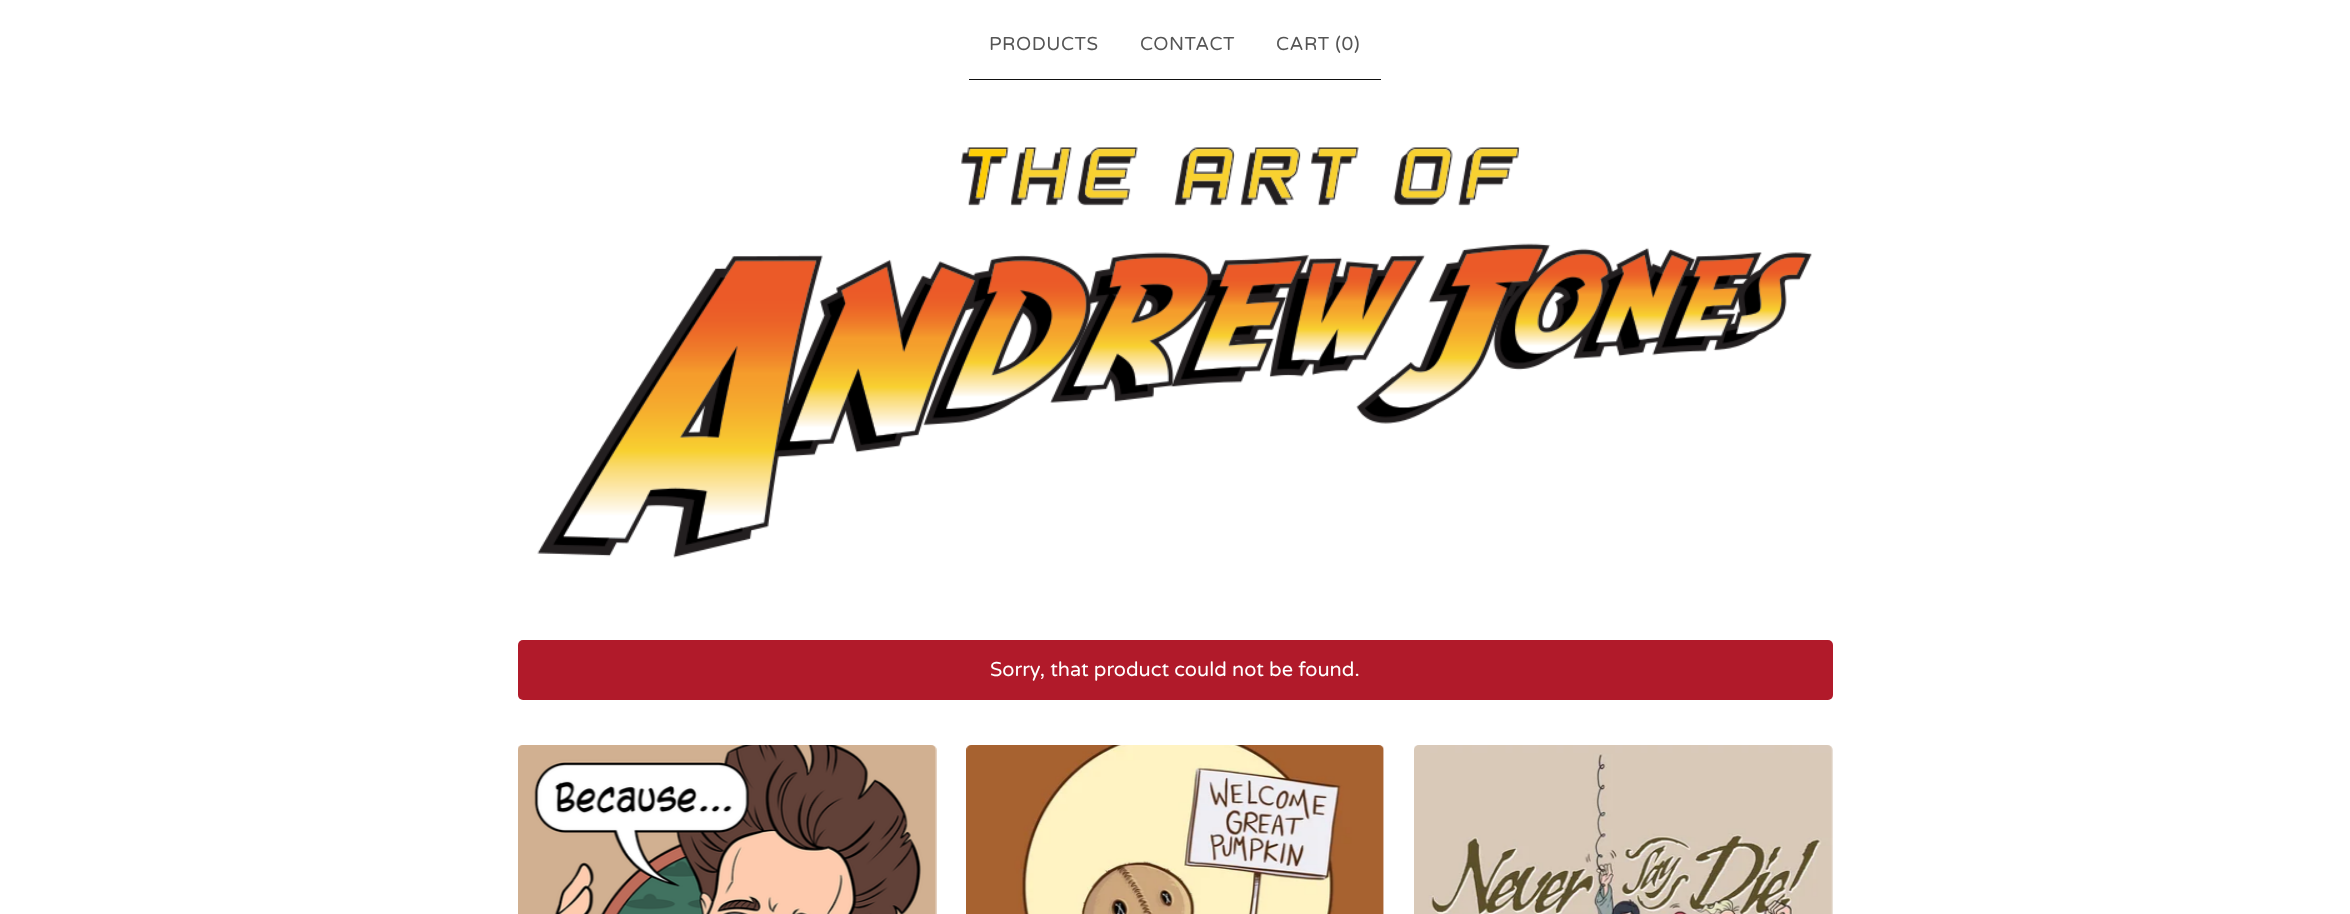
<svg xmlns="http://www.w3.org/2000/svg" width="2350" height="914">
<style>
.a{font:18.75px Varela Round;letter-spacing:0.5px;fill:#555}
.b{font:20px Varela Round;fill:#fff}
</style>
<rect width="100%" height="100%" fill="#fff"/>
<path fill="#111" d="M969 79h412v1H969z"/>
<image href="1.png" x="537" y="147" width="1275" height="411"/>
<rect fill="#b11a2a" x="518" y="640" width="1315" height="60" rx="5"/>
<image href="2.png" x="518" y="745" width="419" height="169"/>
<image href="3.png" x="966" y="745" width="418" height="169"/>
<image href="4.png" x="1414" y="745" width="419" height="169"/>
<text class="a" x="989" y="50">PRODUCTS</text>
<text class="a" x="1140" y="50">CONTACT</text>
<text class="a" x="1276" y="50">CART (0)</text>
<text class="b" x="990" y="676">Sorry, that product could not be found.</text>
</svg>
